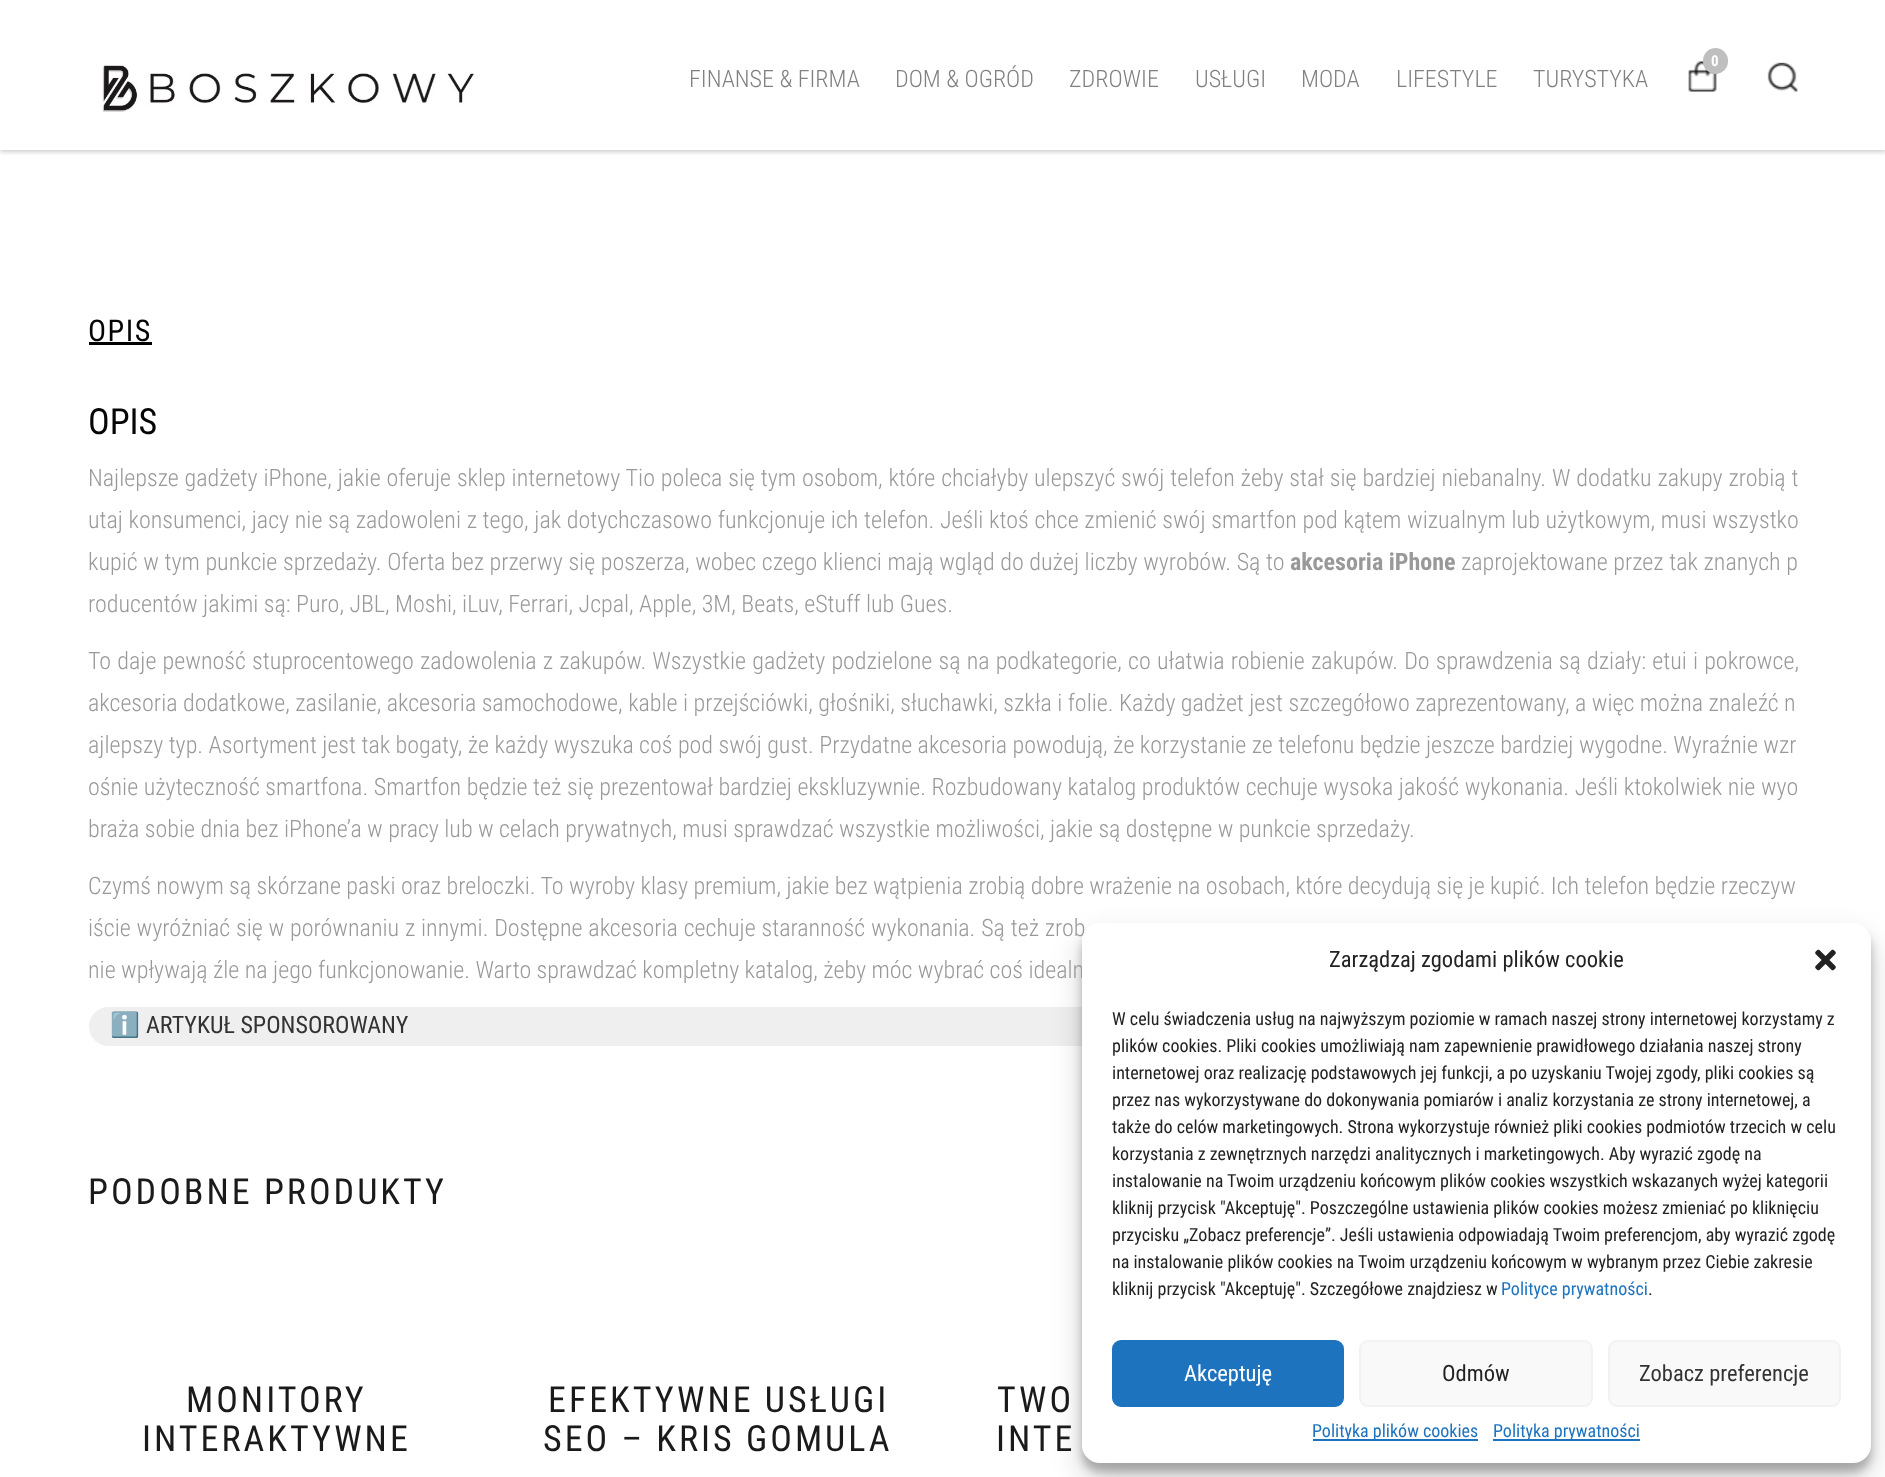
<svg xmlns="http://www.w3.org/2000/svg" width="1885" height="1477">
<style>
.a{font:300 24px Roboto Condensed;fill:#808080}
.b{font:bold 15px Roboto Condensed;fill:#fff}
.c{font:30px Roboto Condensed;letter-spacing:1.5px;fill:#050505}
.d{font:36px Roboto Condensed;fill:#050505}
.e{font:300 24px Roboto Condensed;fill:#999}
.f{font:bold 24px Roboto Condensed;fill:#999}
.g{font:24px Noto Color Emoji;fill:#333}
.h{font:24px Roboto Condensed;fill:#333}
.i{font:36px Roboto Condensed;letter-spacing:3px;fill:#1a1a1a}
.j{font:22.5px Roboto Condensed;fill:#222}
.k{font:18px Roboto Condensed;fill:#222}
.l{font:18px Roboto Condensed;fill:#1e73be}
.m{font:22.5px Roboto Condensed;fill:#fff}
.n{font:22.5px Roboto Condensed;fill:#333}
</style>
<defs>
<clipPath id="clip1"><path d="M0 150h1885v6H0z"/></clipPath>
</defs>
<rect width="100%" height="100%" fill="#fff"/>
<g clip-path="url(#clip1)">
<path fill="#cecece" filter="blur(2px)" d="M0 2h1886v150H0z"/>
</g>
<image href="1.png" x="102" y="65" width="372" height="47"/>
<image href="2.png" x="1688" y="61" width="29" height="31"/>
<rect fill="#bfbfbf" x="1703" y="48" width="25" height="26" rx="12.5"/>
<image href="3.png" x="1767" y="62" width="31" height="30"/>
<path fill="#000" d="M89 342h63v3H89z"/>
<rect fill="#efefef" x="89" y="1007" width="1702" height="39" rx="19.5"/>
<rect fill="#0000003b" filter="blur(4.5px)" x="1082" y="932" width="789" height="540" rx="18"/>
<rect fill="#00000030" filter="blur(15px)" x="1082" y="938" width="789" height="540" rx="18"/>
<text class="a" x="689" y="87">FINANSE &amp; FIRMA</text>
<text class="a" x="895" y="87">DOM &amp; OGRÓD</text>
<text class="a" x="1069" y="87">ZDROWIE</text>
<text class="a" x="1195" y="87">USŁUGI</text>
<text class="a" x="1301" y="87">MODA</text>
<text class="a" x="1396" y="87">LIFESTYLE</text>
<text class="a" x="1533" y="87">TURYSTYKA</text>
<text class="b" x="1711" y="66">0</text>
<text class="c" x="88" y="341">OPIS</text>
<text class="d" x="88" y="434">OPIS</text>
<text class="e" x="88" y="486" word-spacing="0.4">Najlepsze gadżety iPhone, jakie oferuje sklep internetowy Tio poleca się tym osobom, które chciałyby ulepszyć swój telefon żeby stał się bardziej niebanalny. W dodatku zakupy zrobią t</text>
<text class="e" x="88" y="528" word-spacing="0.25">utaj konsumenci, jacy nie są zadowoleni z tego, jak dotychczasowo funkcjonuje ich telefon. Jeśli ktoś chce zmienić swój smartfon pod kątem wizualnym lub użytkowym, musi wszystko</text>
<text class="e" x="88" y="570" word-spacing="0.2">kupić w tym punkcie sprzedaży. Oferta bez przerwy się poszerza, wobec czego klienci mają wgląd do dużej liczby wyrobów. Są to</text>
<text class="f" x="1290" y="570">akcesoria iPhone</text>
<text class="e" x="1461" y="570" word-spacing="0.2">zaprojektowane przez tak znanych p</text>
<text class="e" x="88" y="612">roducentów jakimi są: Puro, JBL, Moshi, iLuv, Ferrari, Jcpal, Apple, 3M, Beats, eStuff lub Gues.</text>
<text class="e" x="88" y="669" word-spacing="0.75">To daje pewność stuprocentowego zadowolenia z zakupów. Wszystkie gadżety podzielone są na podkategorie, co ułatwia robienie zakupów. Do sprawdzenia są działy: etui i pokrowce,</text>
<text class="e" x="88" y="711">akcesoria dodatkowe, zasilanie, akcesoria samochodowe, kable i przejściówki, głośniki, słuchawki, szkła i folie. Każdy gadżet jest szczegółowo zaprezentowany, a więc można znaleźć n</text>
<text class="e" x="88" y="753">ajlepszy typ. Asortyment jest tak bogaty, że każdy wyszuka coś pod swój gust. Przydatne akcesoria powodują, że korzystanie ze telefonu będzie jeszcze bardziej wygodne. Wyraźnie wzr</text>
<text class="e" x="88" y="795" word-spacing="0.2">ośnie użyteczność smartfona. Smartfon będzie też się prezentował bardziej ekskluzywnie. Rozbudowany katalog produktów cechuje wysoka jakość wykonania. Jeśli ktokolwiek nie wyo</text>
<text class="e" x="88" y="837">braża sobie dnia bez iPhone’a w pracy lub w celach prywatnych, musi sprawdzać wszystkie możliwości, jakie są dostępne w punkcie sprzedaży.</text>
<text class="e" x="88" y="894">Czymś nowym są skórzane paski oraz breloczki. To wyroby klasy premium, jakie bez wątpienia zrobią dobre wrażenie na osobach, które decydują się je kupić. Ich telefon będzie rzeczyw</text>
<text class="e" x="88" y="936" word-spacing="0.4">iście wyróżniać się w porównaniu z innymi. Dostępne akcesoria cechuje staranność wykonania. Są też zrob</text>
<text class="e" x="88" y="978">nie wpływają źle na jego funkcjonowanie. Warto sprawdzać kompletny katalog, żeby móc wybrać coś idealn</text>
<text class="g" x="110" y="1033">ℹ️</text>
<text class="h" x="146" y="1033">ARTYKUŁ SPONSOROWANY</text>
<text class="i" x="88" y="1204">PODOBNE PRODUKTY</text>
<text class="i" x="186" y="1412">MONITORY</text>
<text class="i" x="142" y="1451">INTERAKTYWNE</text>
<text class="i" x="548" y="1412">EFEKTYWNE USŁUGI</text>
<text class="i" x="543" y="1451">SEO – KRIS GOMULA</text>
<text class="i" x="997" y="1412">TWO</text>
<text class="i" x="996" y="1451">INTE</text>
<rect fill="#fff" x="1082" y="923" width="789" height="540" rx="18"/>
<text class="j" x="1329" y="967">Zarządzaj zgodami plików cookie</text>
<image href="4.png" x="1815" y="949" width="21" height="22"/>
<text class="k" x="1112" y="1025">W celu świadczenia usług na najwyższym poziomie w ramach naszej strony internetowej korzystamy z</text>
<text class="k" x="1112" y="1052">plików cookies. Pliki cookies umożliwiają nam zapewnienie prawidłowego działania naszej strony</text>
<text class="k" x="1112" y="1079">internetowej oraz realizację podstawowych jej funkcji, a po uzyskaniu Twojej zgody, pliki cookies są</text>
<text class="k" x="1112" y="1106">przez nas wykorzystywane do dokonywania pomiarów i analiz korzystania ze strony internetowej, a</text>
<text class="k" x="1112" y="1133">także do celów marketingowych. Strona wykorzystuje również pliki cookies podmiotów trzecich w celu</text>
<text class="k" x="1112" y="1160">korzystania z zewnętrznych narzędzi analitycznych i marketingowych. Aby wyrazić zgodę na</text>
<text class="k" x="1112" y="1187">instalowanie na Twoim urządzeniu końcowym plików cookies wszystkich wskazanych wyżej kategorii</text>
<text class="k" x="1112" y="1214">kliknij przycisk "Akceptuję". Poszczególne ustawienia plików cookies możesz zmieniać po kliknięciu</text>
<text class="k" x="1112" y="1241">przycisku „Zobacz preferencje”. Jeśli ustawienia odpowiadają Twoim preferencjom, aby wyrazić zgodę</text>
<text class="k" x="1112" y="1268">na instalowanie plików cookies na Twoim urządzeniu końcowym w wybranym przez Ciebie zakresie</text>
<text class="k" x="1112" y="1295">kliknij przycisk "Akceptuję". Szczegółowe znajdziesz w</text>
<text class="l" x="1501" y="1295">Polityce prywatności</text>
<text class="k" x="1648" y="1295">.</text>
<rect fill="#1e73be" stroke="#1e73be" stroke-width="2" x="1113" y="1341" width="230" height="65" rx="8"/>
<text class="m" x="1184" y="1381">Akceptuję</text>
<rect fill="#f9f9f9" stroke="#f2f2f2" stroke-width="2" x="1360" y="1341" width="232" height="65" rx="8"/>
<text class="j" x="1442" y="1381">Odmów</text>
<rect fill="#f9f9f9" stroke="#f2f2f2" stroke-width="2" x="1609" y="1341" width="231" height="65" rx="8"/>
<text class="n" x="1639" y="1381">Zobacz preferencje</text>
<path fill="#1e73be" d="M1313 1439h165v2H1313z"/>
<text class="l" x="1312" y="1437">Polityka plików cookies</text>
<path fill="#1e73be" d="M1493 1439h147v2H1493z"/>
<text class="l" x="1493" y="1437">Polityka prywatności</text>
</svg>
